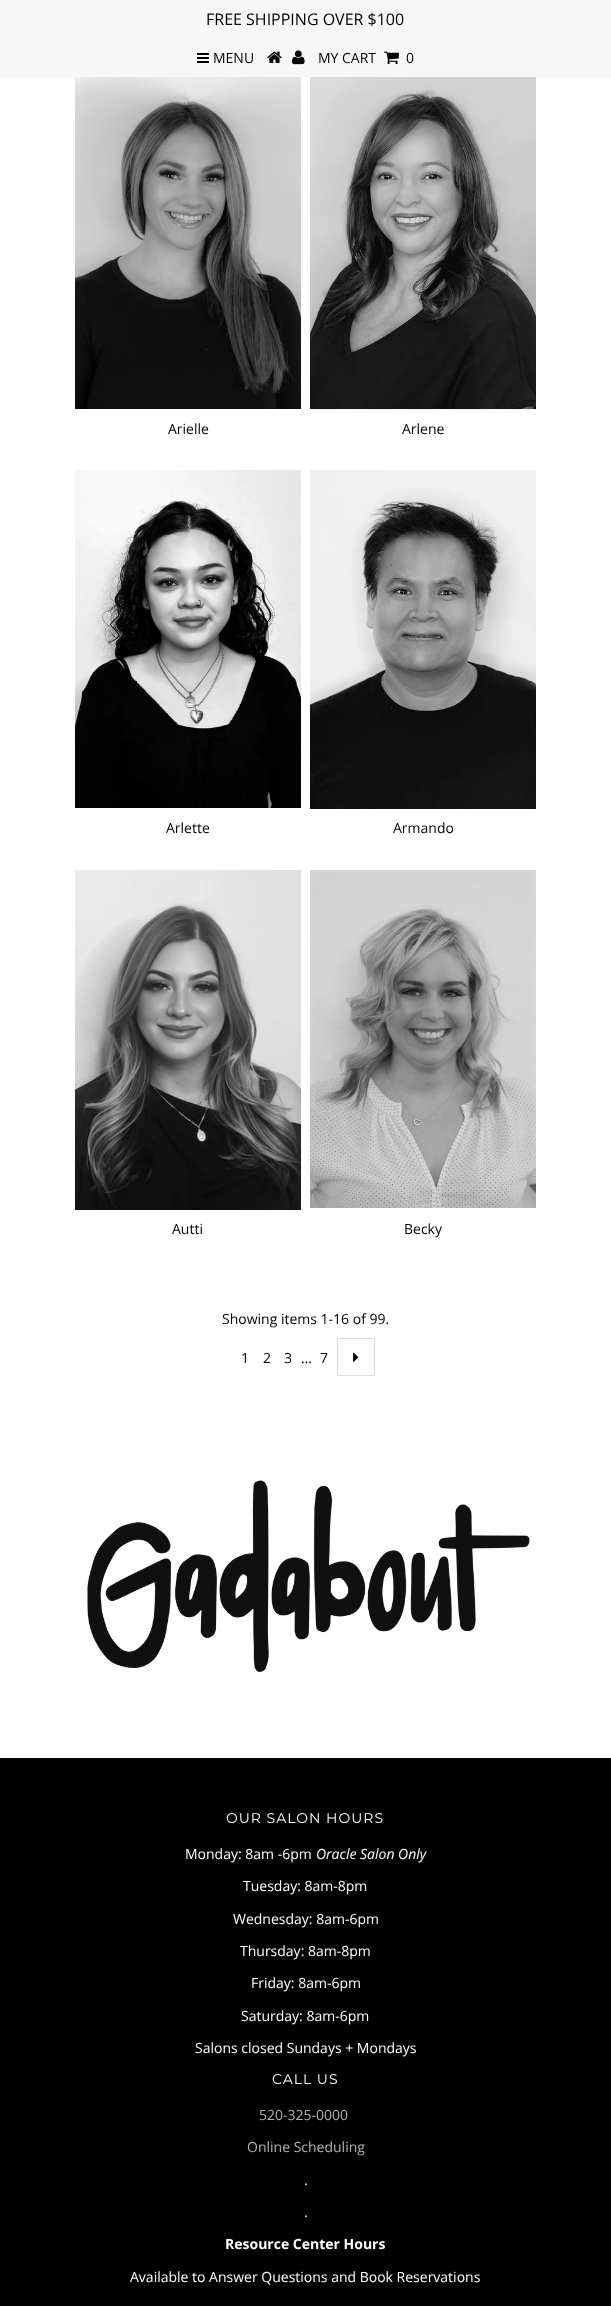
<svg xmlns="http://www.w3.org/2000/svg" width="611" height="2306">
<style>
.a{font:16px Open Sans;fill:#000}
.b{font:14px Open Sans;fill:#000}
.c{font:14px Montserrat;letter-spacing:1px;fill:#fff}
.d{font:14px Open Sans;fill:#fff}
.e{font:italic 14px Open Sans;fill:#fff}
.f{font:14px Open Sans;fill:#b3b3b3}
.g{font:bold 14px Open Sans;fill:#fff}
</style>
<rect width="100%" height="100%" fill="#fff"/>
<path fill="#f7f7f7" d="M0 0h611v77H0z"/>
<image href="1.png" x="197" y="53" width="12" height="10"/>
<image href="2.png" x="267" y="51" width="15" height="12"/>
<image href="3.png" x="292" y="50" width="13" height="15"/>
<image href="4.png" x="384" y="51" width="15" height="14"/>
<image href="5.png" x="75" y="77" width="226" height="332"/>
<path fill="#f1f1f1" d="M310 409h226v1H310z"/>
<image href="6.png" x="310" y="77" width="226" height="332"/>
<image href="7.png" x="75" y="470" width="226" height="338"/>
<image href="8.png" x="310" y="470" width="226" height="339"/>
<image href="9.png" x="75" y="870" width="226" height="340"/>
<image href="10.png" x="310" y="870" width="226" height="338"/>
<path fill="none" stroke="#ddd" d="M337.5 1338.5h37v37H337.5z"/>
<image href="11.png" x="353" y="1352" width="6" height="10"/>
<image href="12.png" x="87" y="1480" width="443" height="193"/>
<path fill="#000" d="M0 1758h611v548H0z"/>
<text class="a" x="206" y="25">FREE SHIPPING OVER $100</text>
<text class="b" x="213" y="63">MENU</text>
<text class="b" x="318" y="63">MY CART</text>
<text class="b" x="406" y="63">0</text>
<text class="b" x="168" y="434">Arielle</text>
<text class="b" x="402" y="434">Arlene</text>
<text class="b" x="166" y="833">Arlette</text>
<text class="b" x="393" y="833">Armando</text>
<text class="b" x="172" y="1234">Autti</text>
<text class="b" x="404" y="1234">Becky</text>
<text class="b" x="222" y="1324">Showing items 1-16 of 99.</text>
<text class="b" x="241" y="1363">1</text>
<text class="b" x="263" y="1363">2</text>
<text class="b" x="284" y="1363">3</text>
<text class="b" x="301" y="1363">…</text>
<text class="b" x="320" y="1363">7</text>
<text class="c" x="226" y="1823">OUR SALON HOURS</text>
<text class="d" x="185" y="1859">Monday: 8am -6pm</text>
<text class="e" x="316" y="1859">Oracle Salon Only</text>
<text class="d" x="243" y="1891">Tuesday: 8am-8pm</text>
<text class="d" x="233" y="1924">Wednesday: 8am-6pm</text>
<text class="d" x="240" y="1956">Thursday: 8am-8pm</text>
<text class="d" x="251" y="1988">Friday: 8am-6pm</text>
<text class="d" x="241" y="2021">Saturday: 8am-6pm</text>
<text class="d" x="195" y="2053">Salons closed Sundays + Mondays</text>
<text class="c" x="272" y="2084">CALL US</text>
<text class="f" x="259" y="2120">520-325-0000</text>
<text class="f" x="247" y="2152">Online Scheduling</text>
<text class="d" x="304" y="2185">.</text>
<text class="d" x="304" y="2217">.</text>
<text class="g" x="225" y="2249">Resource Center Hours</text>
<text class="d" x="130" y="2282">Available to Answer Questions and Book Reservations</text>
</svg>
